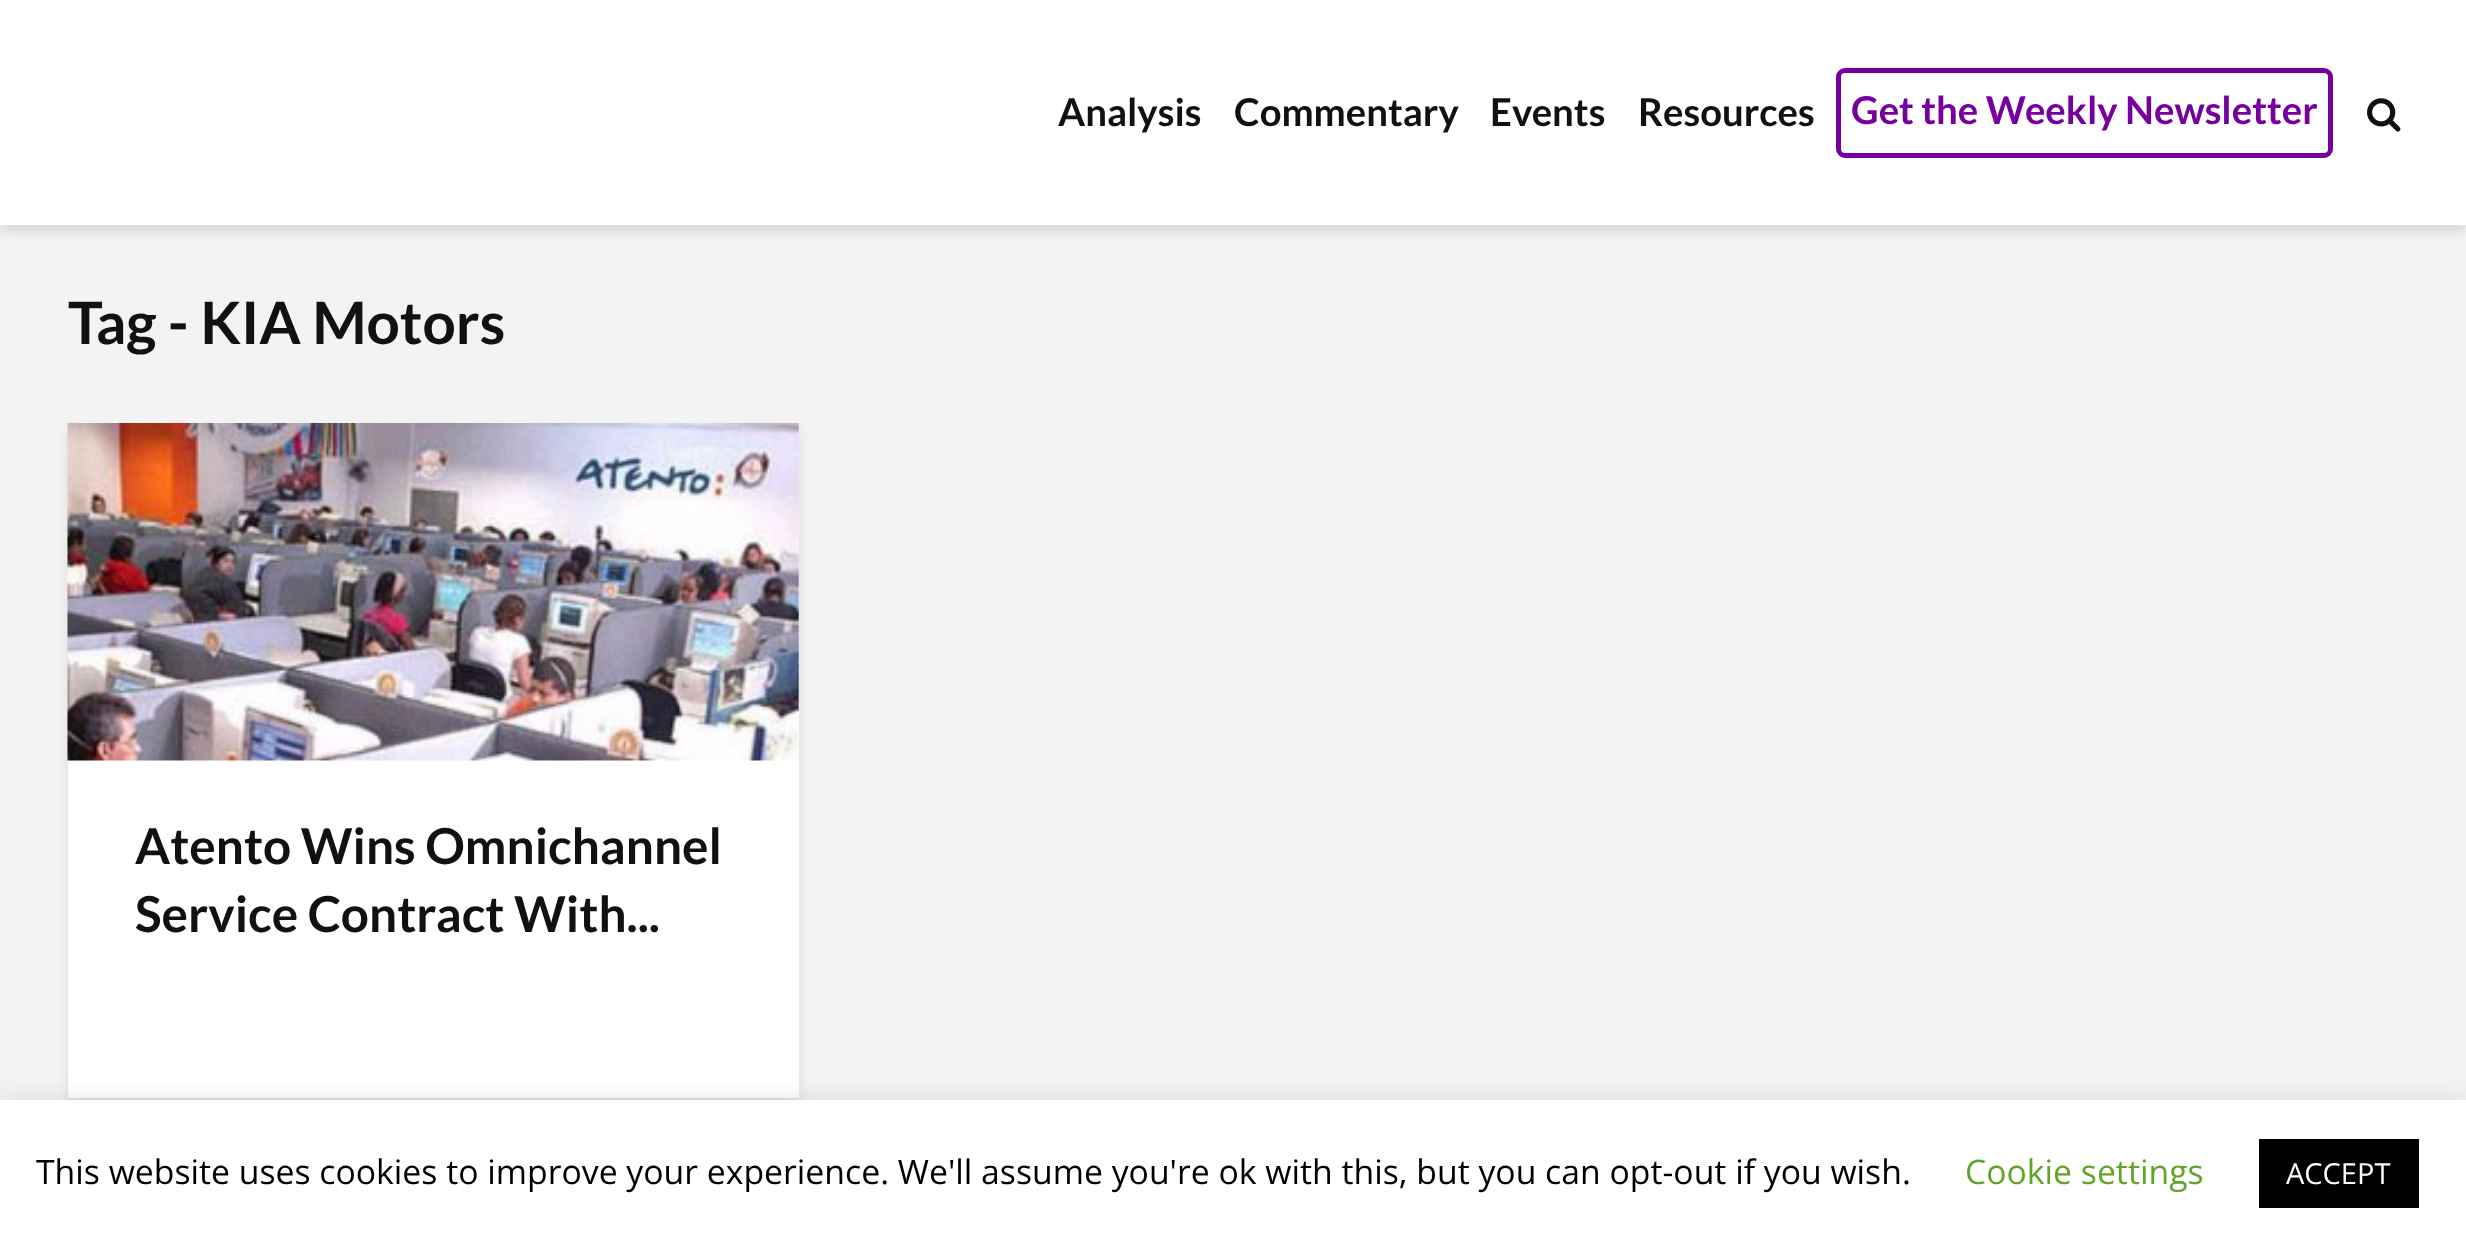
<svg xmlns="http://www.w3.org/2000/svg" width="2466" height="1245">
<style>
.a{font:bold 38.25px Lato;fill:#111}
.b{font:bold 38.25px Lato;fill:#75009f}
.c{font:bold 58.5px Lato;fill:#111}
.d{font:bold 49.5px Lato;fill:#111}
.e{font:33.75px Open Sans;fill:#000}
.f{font:33.75px Open Sans;fill:#62a329}
.g{font:29px Open Sans;fill:#fff}
</style>
<rect width="100%" height="100%" fill="#f3f3f3"/>
<path fill="#0001011a" filter="blur(5.5px)" d="M0 7h2466v225H0z"/>
<path fill="#fff" d="M0 0h2466v225H0z"/>
<rect fill="none" stroke="#75009f" stroke-width="5" x="1838.5" y="70.5" width="492" height="85" rx="6.5"/>
<image href="1.png" x="2367" y="98" width="34" height="34"/>
<path fill="#0001011a" filter="blur(5.5px)" d="M68 430h731v675H68z"/>
<path fill="#fff" d="M68 423h731v675H68z"/>
<image href="2.png" x="67" y="423" width="732" height="338"/>
<path fill="#acabab4d" filter="blur(11px)" d="M0 1098h2466v146H0z"/>
<path fill="#fff" d="M0 1100h2466v145H0z"/>
<path fill="#000" d="M2259 1139h160v69H2259z"/>
<text class="a" x="1058" y="126">Analysis</text>
<text class="a" x="1234" y="126">Commentary</text>
<text class="a" x="1490" y="126">Events</text>
<text class="a" x="1638" y="126">Resources</text>
<text class="b" x="1851" y="124">Get the Weekly Newsletter</text>
<text class="c" x="68" y="344">Tag - KIA Motors</text>
<text class="d" x="135" y="864">Atento Wins Omnichannel</text>
<text class="d" x="135" y="932">Service Contract With...</text>
<text class="e" x="36" y="1184">This website uses cookies to improve your experience. We'll assume you're ok with this, but you can opt-out if you wish.</text>
<text class="f" x="1965" y="1184">Cookie settings</text>
<text class="g" x="2286" y="1184">ACCEPT</text>
</svg>
